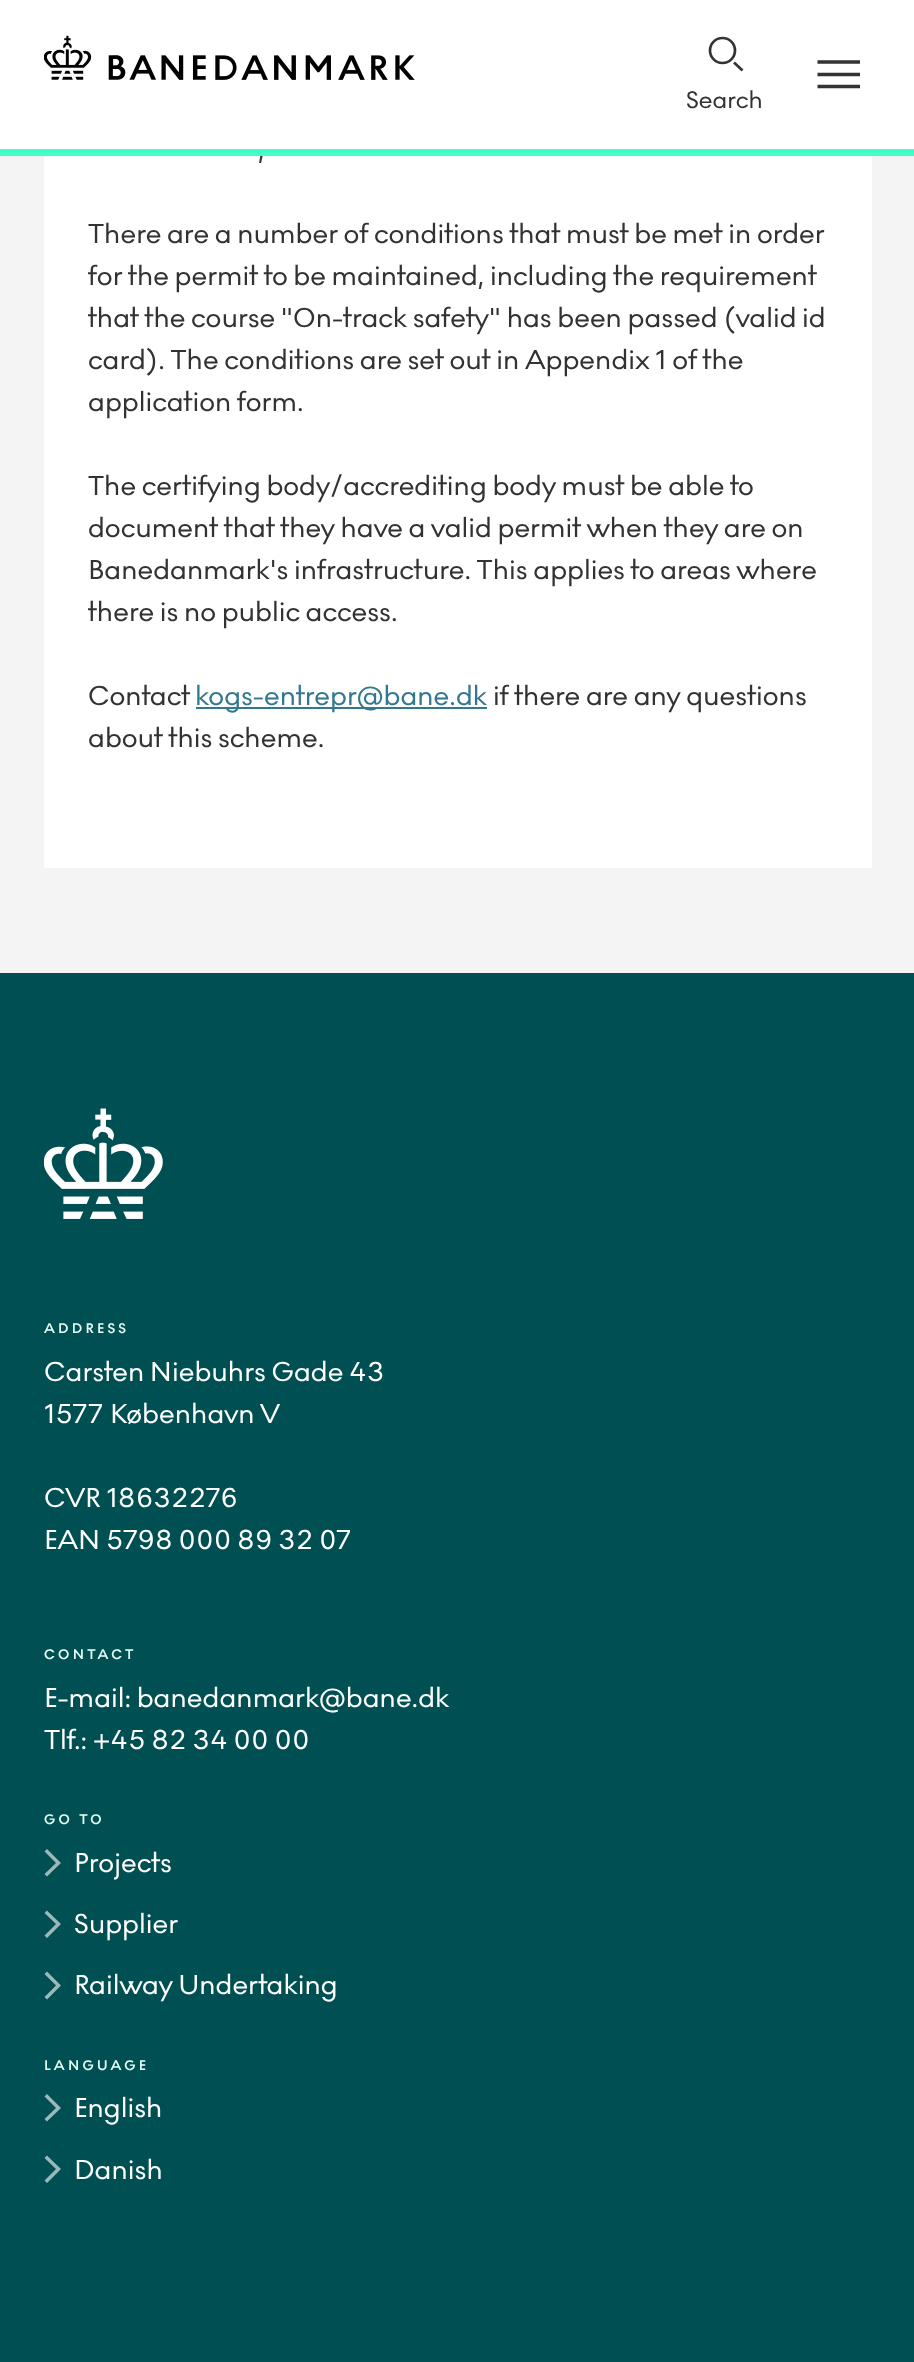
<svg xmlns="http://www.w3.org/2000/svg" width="914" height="2362">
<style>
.a{font:24.5px 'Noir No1';fill:#323232}
.b{font:28px 'Noir No1';fill:#323232}
.c{font:28px 'Noir No1';fill:#337890}
.d{font:600 14.25px 'Noir No1';letter-spacing:3.25px;fill:#e6fff8}
.e{font:28px 'Noir No1';fill:#fff}
</style>
<rect width="100%" height="100%" fill="#f4f4f4"/>
<path fill="#fff" d="M0 0h914v149H0z"/>
<path fill="#42ffca" d="M0 149h914v7H0z"/>
<image href="1.png" x="44" y="35" width="371" height="45"/>
<path fill="none" stroke="#333" stroke-width="3.5" d="M817.5 62h42.5m-42.5 12.5h42.5m-42.5 12h42.5"/>
<circle fill="none" stroke="#333" stroke-width="2.7" cx="722.5" cy="50.5" r="12.5"/>
<path fill="none" stroke="#333" stroke-width="2.7" d="M734 62.5l8.5 8"/>
<path fill="#fff" d="M44 156h828v712H44z"/>
<path fill="#337890" d="M196 707h291v2H196z"/>
<path fill="#004f52" d="M0 973h914v1389H0z"/>
<image href="2.png" x="44" y="1108" width="119" height="111"/>
<path fill="none" stroke="#9db8b9" stroke-width="3.5" stroke-linecap="square" d="M47 1851.5l11.5 11.5l-11.5 11"/>
<path fill="none" stroke="#9db8b9" stroke-width="3.5" stroke-linecap="square" d="M47 1913l11.5 11l-11.5 11.5"/>
<path fill="none" stroke="#9db8b9" stroke-width="3.5" stroke-linecap="square" d="M47 1974l11.5 11.5l-11.5 11.5"/>
<path fill="none" stroke="#9db8b9" stroke-width="3.5" stroke-linecap="square" d="M47 2096.5l11.5 11.5l-11.5 11"/>
<path fill="none" stroke="#9db8b9" stroke-width="3.5" stroke-linecap="square" d="M47 2158l11.5 11l-11.5 11.5"/>
<text class="a" x="686" y="108">Search</text>
<text class="b" x="258" y="159">,</text>
<text class="b" x="88" y="243">There are a number of conditions that must be met in order</text>
<text class="b" x="88" y="285">for the permit to be maintained, including the requirement</text>
<text class="b" x="88" y="327">that the course "On-track safety" has been passed (valid id</text>
<text class="b" x="88" y="369">card). The conditions are set out in Appendix 1 of the</text>
<text class="b" x="88" y="411">application form.</text>
<text class="b" x="88" y="495">The certifying body/accrediting body must be able to</text>
<text class="b" x="88" y="537">document that they have a valid permit when they are on</text>
<text class="b" x="88" y="579">Banedanmark's infrastructure. This applies to areas where</text>
<text class="b" x="88" y="621">there is no public access.</text>
<text class="b" x="88" y="705">Contact</text>
<text class="c" x="195" y="705">kogs-entrepr@bane.dk</text>
<text class="b" x="493" y="705">if there are any questions</text>
<text class="b" x="88" y="747">about this scheme.</text>
<text class="d" x="44" y="1333">ADDRESS</text>
<text class="e" x="44" y="1381">Carsten Niebuhrs Gade 43</text>
<text class="e" x="44" y="1423">1577 København V</text>
<text class="e" x="44" y="1507">CVR 18632276</text>
<text class="e" x="44" y="1549">EAN 5798 000 89 32 07</text>
<text class="d" x="44" y="1659">CONTACT</text>
<text class="e" x="44" y="1707">E-mail: banedanmark@bane.dk</text>
<text class="e" x="44" y="1749">Tlf.: +45 82 34 00 00</text>
<text class="d" x="44" y="1824">GO TO</text>
<text class="e" x="74" y="1872">Projects</text>
<text class="e" x="74" y="1933">Supplier</text>
<text class="e" x="74" y="1994">Railway Undertaking</text>
<text class="d" x="44" y="2070">LANGUAGE</text>
<text class="e" x="74" y="2117">English</text>
<text class="e" x="74" y="2179">Danish</text>
</svg>
